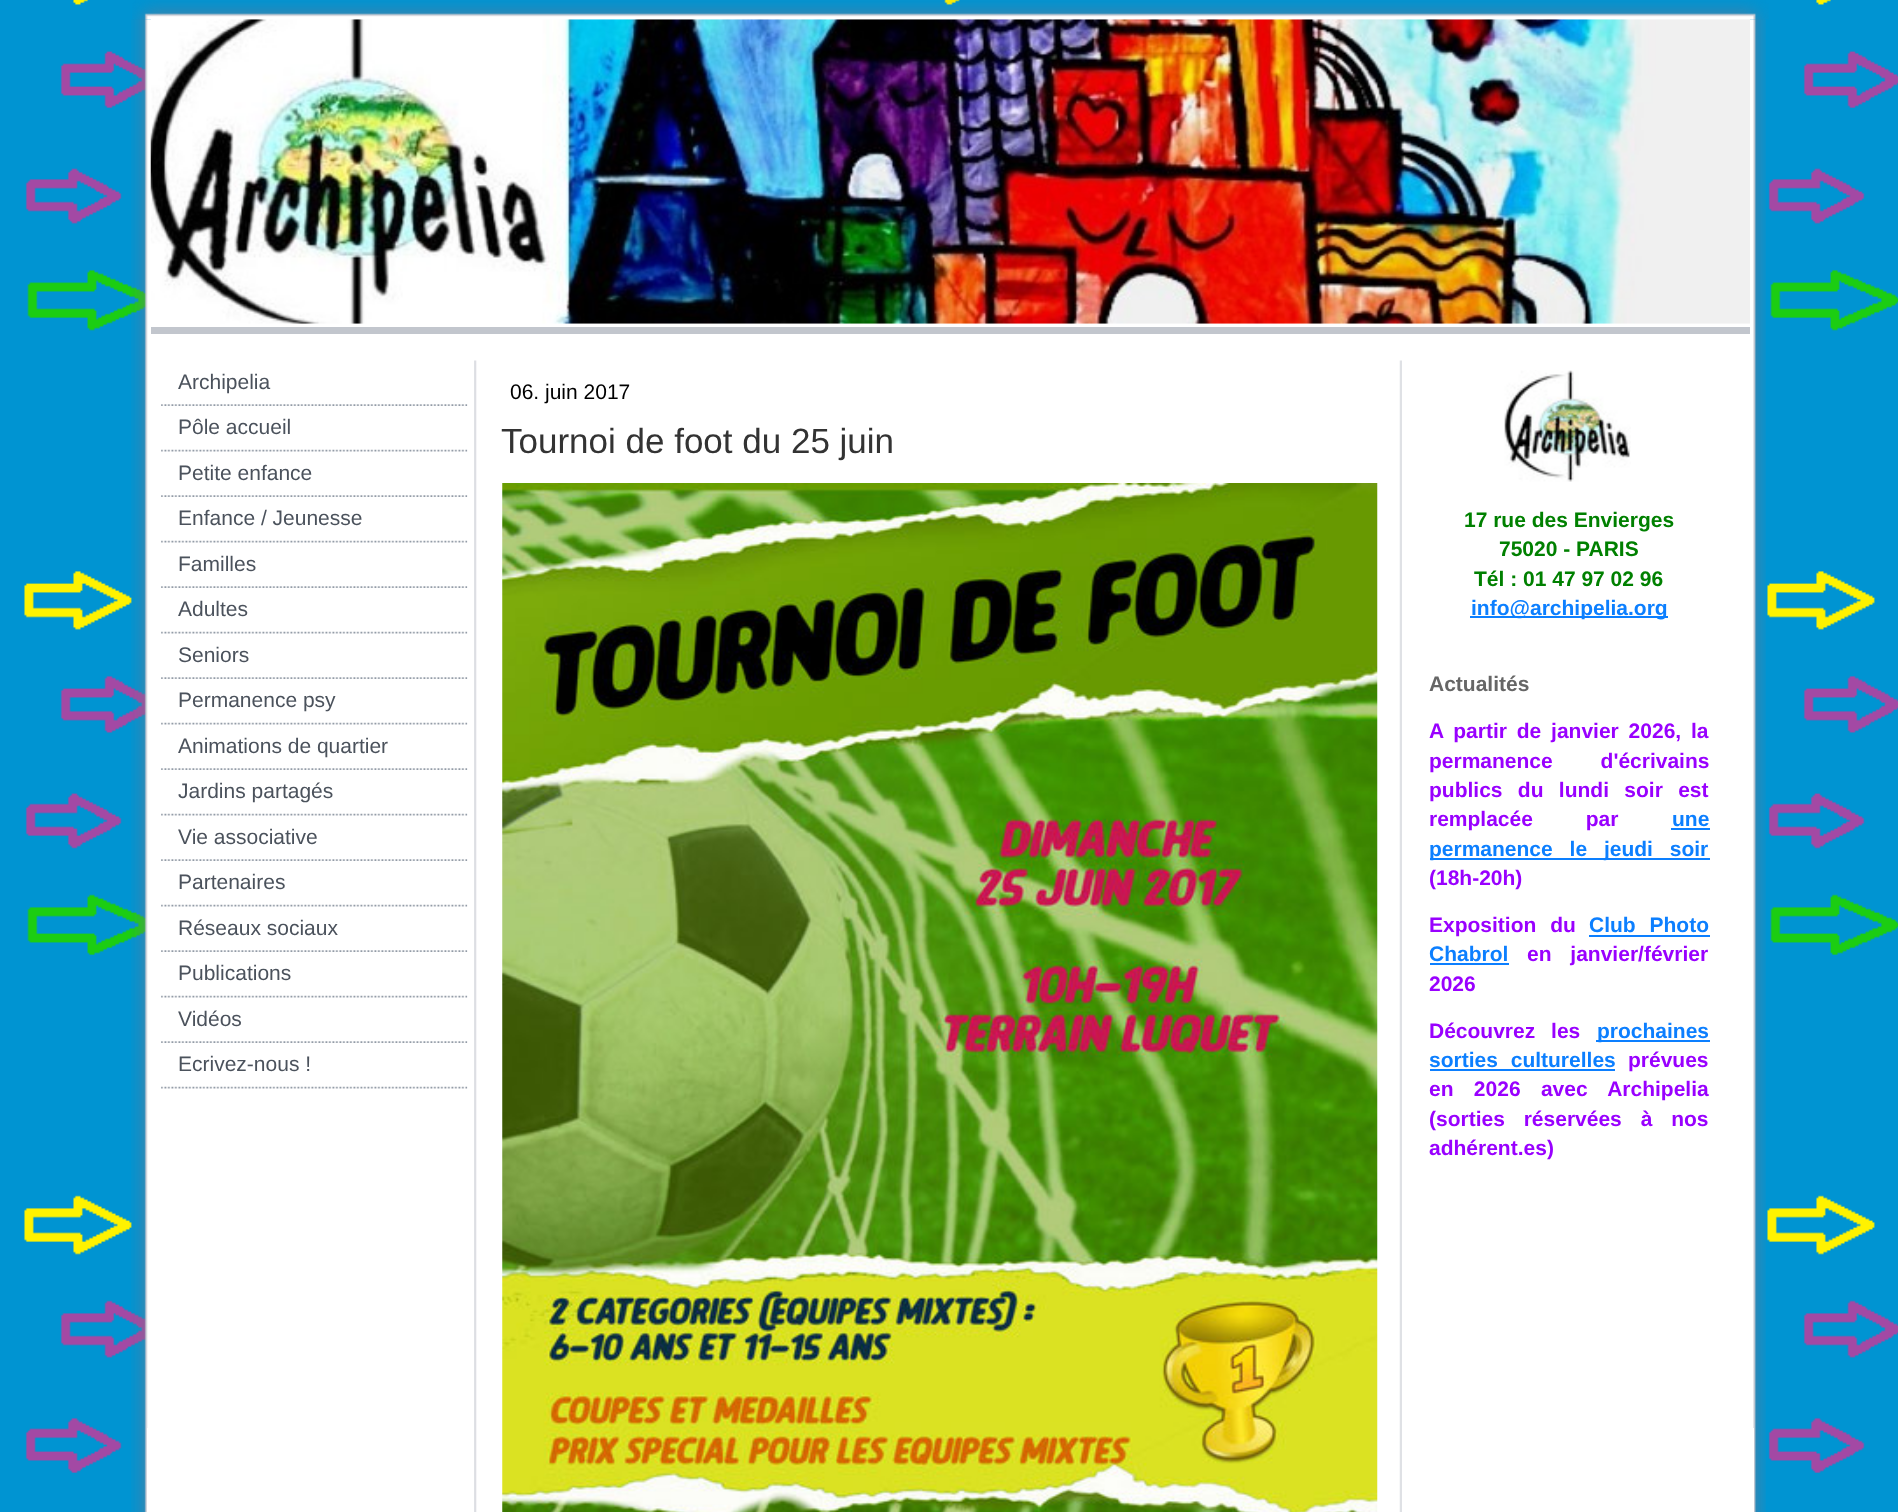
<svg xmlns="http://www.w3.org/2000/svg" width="1898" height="1512">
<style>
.a{font:21px Liberation Sans;fill:#4b525c}
.b{font:21px Liberation Sans;fill:#000}
.c{font:35px Liberation Sans;fill:#333}
.d{font:bold 21px Liberation Sans;fill:#008000}
.e{font:bold 21px Liberation Sans;fill:#0c7fff}
.f{font:bold 21px Liberation Sans;fill:#666}
.g{font:bold 21px Liberation Sans;fill:#90f}
</style>
<rect width="100%" height="100%" fill="#fff"/>
<image href="1.png" x="0" y="0" width="1898" height="1512"/>
<image href="2.png" x="132" y="0" width="1637" height="20"/>
<image href="3.png" x="131" y="19" width="1635" height="1493"/>
<path fill="#c2c6cd" d="M151 327h1599v7H151z"/>
<path fill="#fff" d="M151 19h1599v1H151z"/>
<image href="4.png" x="150" y="19" width="1600" height="305"/>
<path fill="#fff" d="M147 1428h1607v84H147z"/>
<image href="5.png" x="474" y="360" width="928" height="1152"/>
<image href="6.png" x="161" y="404" width="307" height="2"/>
<image href="7.png" x="161" y="449" width="307" height="3"/>
<image href="6.png" x="161" y="495" width="307" height="2"/>
<image href="7.png" x="161" y="540" width="307" height="3"/>
<image href="6.png" x="161" y="586" width="307" height="2"/>
<image href="7.png" x="161" y="631" width="307" height="3"/>
<image href="6.png" x="161" y="677" width="307" height="2"/>
<image href="7.png" x="161" y="722" width="307" height="3"/>
<image href="6.png" x="161" y="768" width="307" height="2"/>
<image href="7.png" x="161" y="813" width="307" height="3"/>
<image href="6.png" x="161" y="859" width="307" height="2"/>
<image href="7.png" x="161" y="904" width="307" height="3"/>
<image href="6.png" x="161" y="950" width="307" height="2"/>
<image href="7.png" x="161" y="995" width="307" height="3"/>
<image href="6.png" x="161" y="1041" width="307" height="2"/>
<image href="7.png" x="161" y="1086" width="307" height="3"/>
<image href="8.png" x="502" y="483" width="876" height="1029"/>
<image href="9.png" x="1504" y="370" width="127" height="112"/>
<path fill="#0c7fff" d="M1470 616h198v2H1470z"/>
<path fill="#0c7fff" d="M1671 828h39v2H1671z"/>
<path fill="#0c7fff" d="M1430 858h280v2H1430z"/>
<path fill="#0c7fff" d="M1589 935h121v2H1589z"/>
<path fill="#0c7fff" d="M1430 963h79v2H1430z"/>
<path fill="#0c7fff" d="M1596 1040h114v2H1596z"/>
<path fill="#0c7fff" d="M1430 1069h185v2H1430z"/>
<text class="a" x="178" y="389">Archipelia</text>
<text class="a" x="178" y="434">Pôle accueil</text>
<text class="a" x="178" y="480">Petite enfance</text>
<text class="a" x="178" y="525">Enfance / Jeunesse</text>
<text class="a" x="178" y="571">Familles</text>
<text class="a" x="178" y="616">Adultes</text>
<text class="a" x="178" y="662">Seniors</text>
<text class="a" x="178" y="707">Permanence psy</text>
<text class="a" x="178" y="753">Animations de quartier</text>
<text class="a" x="178" y="798">Jardins partagés</text>
<text class="a" x="178" y="844">Vie associative</text>
<text class="a" x="178" y="889">Partenaires</text>
<text class="a" x="178" y="935">Réseaux sociaux</text>
<text class="a" x="178" y="980">Publications</text>
<text class="a" x="178" y="1026">Vidéos</text>
<text class="a" x="178" y="1071">Ecrivez-nous !</text>
<text class="b" x="510" y="399">06. juin 2017</text>
<text class="c" x="501" y="453">Tournoi de foot du 25 juin</text>
<text class="d" x="1464" y="527">17 rue des Envierges</text>
<text class="d" x="1499" y="556">75020 - PARIS</text>
<text class="d" x="1474" y="586">Tél : 01 47 97 02 96</text>
<text class="e" x="1471" y="615">info@archipelia.org</text>
<text class="f" x="1429" y="691">Actualités</text>
<text class="g" x="1429" y="738" word-spacing="4">A partir de janvier 2026, la</text>
<text class="g" x="1429" y="768" word-spacing="42">permanence d'écrivains</text>
<text class="g" x="1429" y="797" word-spacing="9.5">publics du lundi soir est</text>
<text class="g" x="1429" y="826" word-spacing="47">remplacée par</text>
<text class="e" x="1672" y="826">une</text>
<text class="e" x="1429" y="856" word-spacing="11">permanence le jeudi soir</text>
<text class="g" x="1429" y="885">(18h-20h)</text>
<text class="g" x="1429" y="932" word-spacing="8">Exposition du</text>
<text class="e" x="1589" y="932" word-spacing="8">Club Photo</text>
<text class="e" x="1429" y="961">Chabrol</text>
<text class="g" x="1527" y="961" word-spacing="13">en janvier/février</text>
<text class="g" x="1429" y="991">2026</text>
<text class="g" x="1429" y="1038" word-spacing="10">Découvrez les</text>
<text class="e" x="1597" y="1038">prochaines</text>
<text class="e" x="1429" y="1067" word-spacing="7">sorties culturelles</text>
<text class="g" x="1628" y="1067">prévues</text>
<text class="g" x="1429" y="1096" word-spacing="14.5">en 2026 avec Archipelia</text>
<text class="g" x="1429" y="1126" word-spacing="13">(sorties réservées à nos</text>
<text class="g" x="1429" y="1155">adhérent.es)</text>
</svg>
